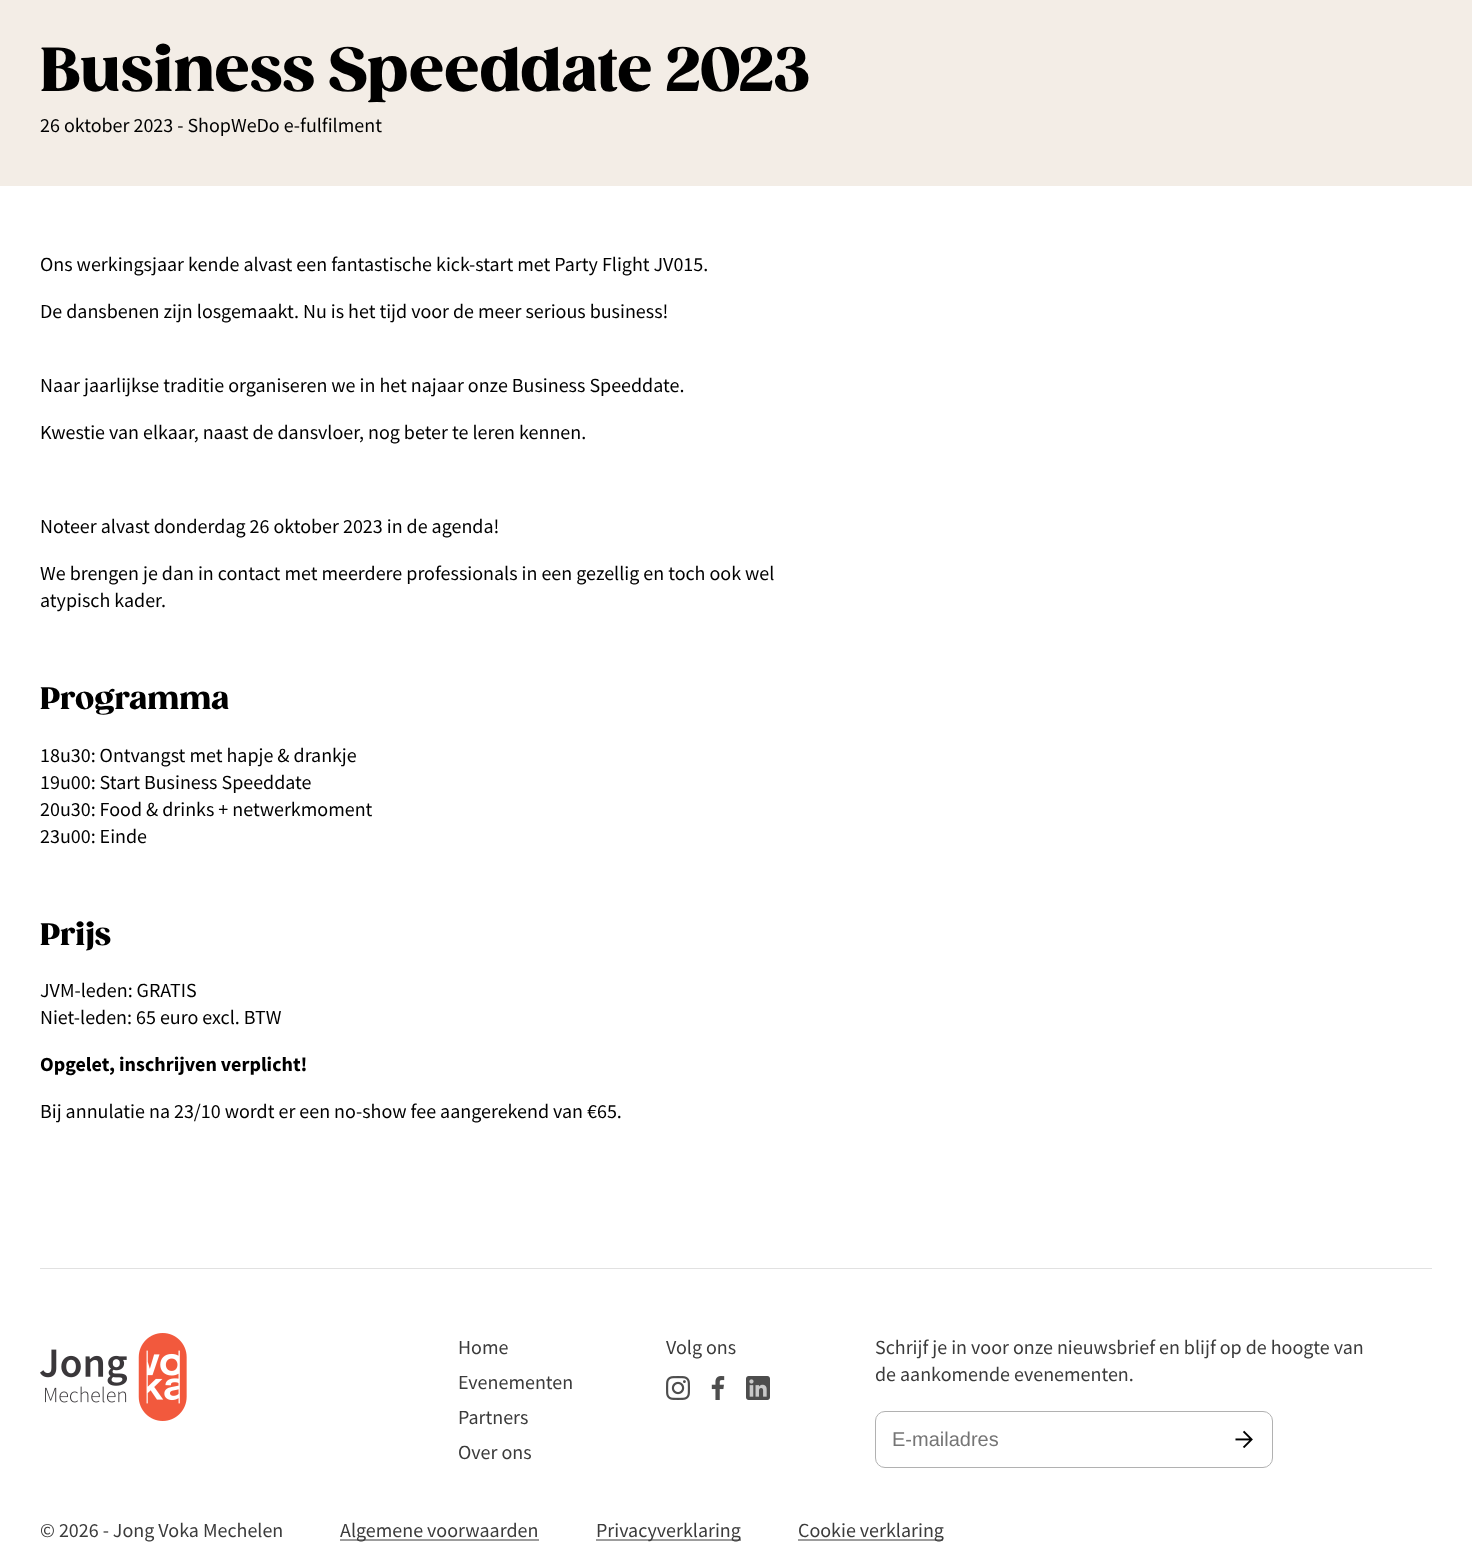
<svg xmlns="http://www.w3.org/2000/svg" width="1472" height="1550">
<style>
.a{font:900 60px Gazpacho;fill:#000}
.b{font:20px Source Sans Pro;fill:#000}
.c{font:900 30px Gazpacho;fill:#000}
.d{font:bold 20px Source Sans Pro;fill:#000}
.e{font:20px Source Sans Pro;fill:#3b3b3b}
.f{font:20px Liberation Sans;fill:#757575}
</style>
<rect width="100%" height="100%" fill="#fff"/>
<path fill="#f3ede6" d="M0 0h1472v186H0z"/>
<path fill="#e1e1e1" d="M40 1268h1392v1H40z"/>
<image href="1.png" x="40" y="1333" width="147" height="88"/>
<image href="2.png" x="666" y="1376" width="24" height="24"/>
<image href="3.png" x="711" y="1376" width="14" height="24"/>
<image href="4.png" x="746" y="1376" width="24" height="24"/>
<rect fill="none" stroke="#b1b1b1" x="875.5" y="1411.5" width="397" height="56" rx="9.5"/>
<image href="5.png" x="1235" y="1430" width="18" height="18"/>
<path fill="#9d9d9d" d="M340 1539h199v2H340z"/>
<path fill="#9d9d9d" d="M596 1539h145v2H596z"/>
<path fill="#9d9d9d" d="M798 1539h145v2H798z"/>
<text class="a" x="40" y="91">Business Speeddate 2023</text>
<text class="b" x="40" y="132">26 oktober 2023 - ShopWeDo e-fulfilment</text>
<text class="b" x="40" y="271">Ons werkingsjaar kende alvast een fantastische kick-start met Party Flight JV015.</text>
<text class="b" x="40" y="318">De dansbenen zijn losgemaakt. Nu is het tijd voor de meer serious business!</text>
<text class="b" x="40" y="392">Naar jaarlijkse traditie organiseren we in het najaar onze Business Speeddate.</text>
<text class="b" x="40" y="439">Kwestie van elkaar, naast de dansvloer, nog beter te leren kennen.</text>
<text class="b" x="40" y="533">Noteer alvast donderdag 26 oktober 2023 in de agenda!</text>
<text class="b" x="40" y="580">We brengen je dan in contact met meerdere professionals in een gezellig en toch ook wel</text>
<text class="b" x="40" y="607">atypisch kader.</text>
<text class="c" x="40" y="709">Programma</text>
<text class="b" x="40" y="762">18u30: Ontvangst met hapje &amp; drankje</text>
<text class="b" x="40" y="789">19u00: Start Business Speeddate</text>
<text class="b" x="40" y="816">20u30: Food &amp; drinks + netwerkmoment</text>
<text class="b" x="40" y="843">23u00: Einde</text>
<text class="c" x="40" y="945">Prijs</text>
<text class="b" x="40" y="997">JVM-leden: GRATIS</text>
<text class="b" x="40" y="1024">Niet-leden: 65 euro excl. BTW</text>
<text class="d" x="40" y="1071">Opgelet, inschrijven verplicht!</text>
<text class="b" x="40" y="1118">Bij annulatie na 23/10 wordt er een no-show fee aangerekend van €65.</text>
<text class="e" x="458" y="1354">Home</text>
<text class="e" x="458" y="1389">Evenementen</text>
<text class="e" x="458" y="1424">Partners</text>
<text class="e" x="458" y="1459">Over ons</text>
<text class="e" x="666" y="1354">Volg ons</text>
<text class="e" x="875" y="1354">Schrijf je in voor onze nieuwsbrief en blijf op de hoogte van</text>
<text class="e" x="875" y="1381">de aankomende evenementen.</text>
<text class="f" x="892" y="1446">E-mailadres</text>
<text class="e" x="40" y="1537">© 2026 - Jong Voka Mechelen</text>
<text class="e" x="340" y="1537">Algemene voorwaarden</text>
<text class="e" x="596" y="1537">Privacyverklaring</text>
<text class="e" x="798" y="1537">Cookie verklaring</text>
</svg>
